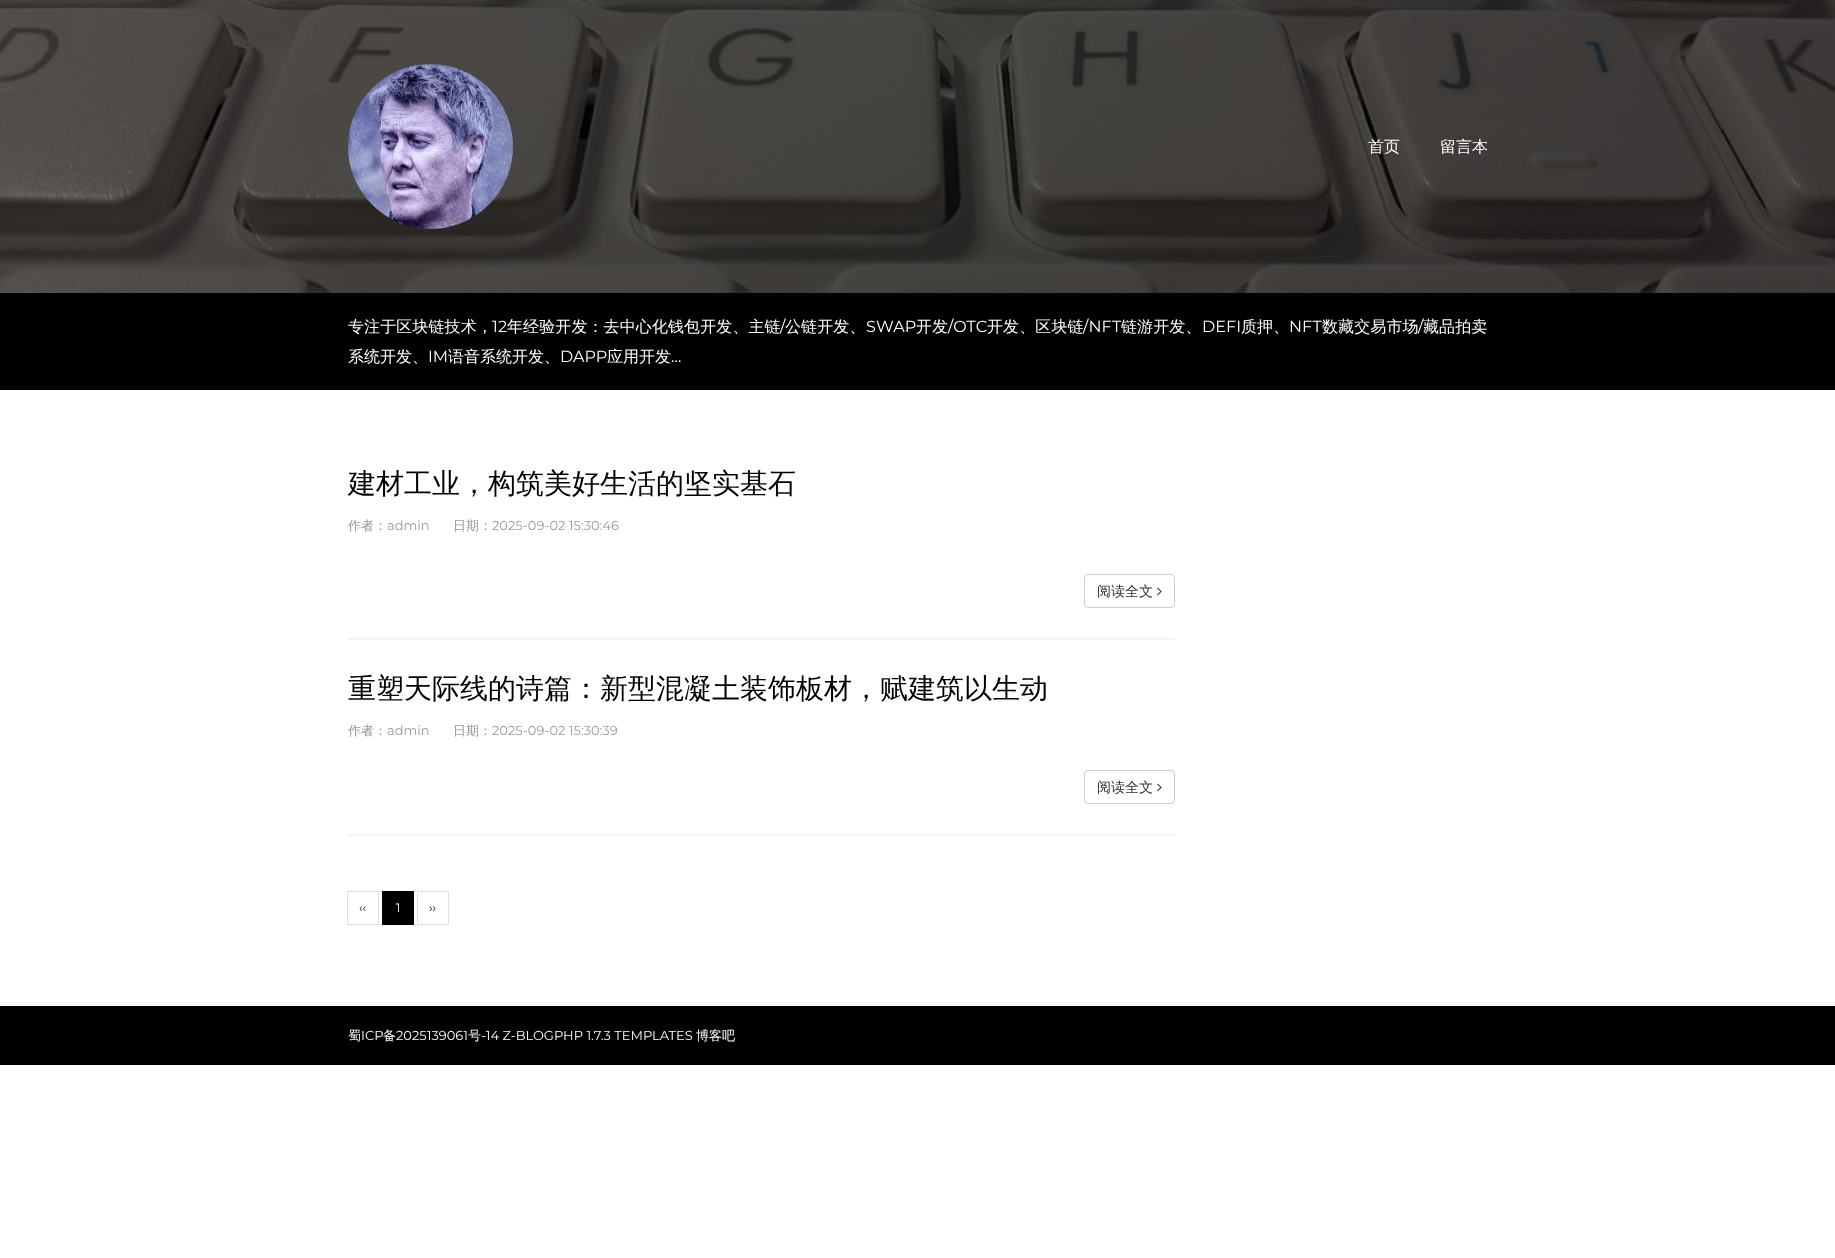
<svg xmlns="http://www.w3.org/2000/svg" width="1835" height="1258">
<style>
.a{font:500 16px WenQuanYi Zen Hei;fill:#fff}
.b{font:500 16px WenQuanYi Zen Hei;letter-spacing:0.1px;fill:#fff}
.c{font:16px Montserrat;letter-spacing:0.1px;fill:#fff}
.d{font:16px Montserrat;fill:#fff}
.e{font:500 28px WenQuanYi Zen Hei;fill:#000}
.f{font:500 13px WenQuanYi Zen Hei;fill:#999}
.g{font:13px Montserrat;fill:#999}
.h{font:500 14px WenQuanYi Zen Hei;fill:#333}
.i{font:12px Montserrat;fill:#000}
.j{font:12px Montserrat;fill:#fff}
.k{font:500 13px WenQuanYi Zen Hei;fill:#fff}
.l{font:13px Montserrat;fill:#fff}
</style>
<rect width="100%" height="100%" fill="#fff"/>
<image href="1.png" x="0" y="0" width="1835" height="293"/>
<image href="2.png" x="348" y="64" width="165" height="165"/>
<path fill="#000" d="M0 293h1835v97H0z"/>
<path fill="#f4f4f4" d="M348 638h827v2H348z"/>
<rect fill="none" stroke="#ccc" x="1084.5" y="574.5" width="90" height="33" rx="3.5"/>
<image href="3.png" x="1157" y="587" width="5" height="9"/>
<path fill="#f4f4f4" d="M348 834h827v2H348z"/>
<rect fill="none" stroke="#ccc" x="1084.5" y="770.5" width="90" height="33" rx="3.5"/>
<image href="3.png" x="1157" y="783" width="5" height="9"/>
<path fill="none" stroke="#ddd" d="M347.5 891.5h31v33H347.5z"/>
<path fill="#000" d="M382 891h32v34H382z"/>
<path fill="none" stroke="#ddd" d="M417.5 891.5h31v33H417.5z"/>
<path fill="#000" d="M0 1006h1835v59H0z"/>
<text class="a" x="1368" y="152">首页</text>
<text class="a" x="1440" y="152">留言本</text>
<text class="b" x="348" y="332">专注于区块链技术，</text>
<text class="c" x="492" y="332">12</text>
<text class="b" x="507" y="332">年经验开发：去中心化钱包开发、主链</text>
<text class="c" x="780" y="332">/</text>
<text class="b" x="785" y="332">公链开发、</text>
<text class="c" x="866" y="332">SWAP</text>
<text class="b" x="916" y="332">开发</text>
<text class="c" x="948" y="332">/OTC</text>
<text class="b" x="987" y="332">开发、区块链</text>
<text class="c" x="1083" y="332">/NFT</text>
<text class="b" x="1121" y="332">链游开发、</text>
<text class="c" x="1202" y="332">DEFI</text>
<text class="b" x="1241" y="332">质押、</text>
<text class="c" x="1289" y="332">NFT</text>
<text class="b" x="1322" y="332">数藏交易市场</text>
<text class="c" x="1418" y="332">/</text>
<text class="b" x="1423" y="332">藏品拍卖</text>
<text class="a" x="348" y="362">系统开发、</text>
<text class="d" x="428" y="362">IM</text>
<text class="a" x="448" y="362">语音系统开发、</text>
<text class="d" x="560" y="362">DAPP</text>
<text class="a" x="607" y="362">应用开发</text>
<text class="d" x="671" y="362">…</text>
<text class="e" x="348" y="493">建材工业，构筑美好生活的坚实基石</text>
<text class="f" x="348" y="530">作者：</text>
<text class="g" x="387" y="530">admin</text>
<text class="f" x="453" y="530">日期：</text>
<text class="g" x="492" y="530">2025-09-02 15:30:46</text>
<text class="h" x="1097" y="596">阅读全文</text>
<text class="e" x="348" y="698">重塑天际线的诗篇：新型混凝土装饰板材，赋建筑以生动</text>
<text class="f" x="348" y="735">作者：</text>
<text class="g" x="387" y="735">admin</text>
<text class="f" x="453" y="735">日期：</text>
<text class="g" x="492" y="735">2025-09-02 15:30:39</text>
<text class="h" x="1097" y="792">阅读全文</text>
<text class="i" x="359" y="912">‹‹</text>
<text class="j" x="396" y="912">1</text>
<text class="i" x="429" y="912">››</text>
<text class="k" x="348" y="1040">蜀</text>
<text class="l" x="361" y="1040">ICP</text>
<text class="k" x="383" y="1040">备</text>
<text class="l" x="396" y="1040">2025139061</text>
<text class="k" x="468" y="1040">号</text>
<text class="l" x="481" y="1040">-14 Z-BLOGPHP 1.7.3 TEMPLATES</text>
<text class="k" x="696" y="1040">博客吧</text>
</svg>
